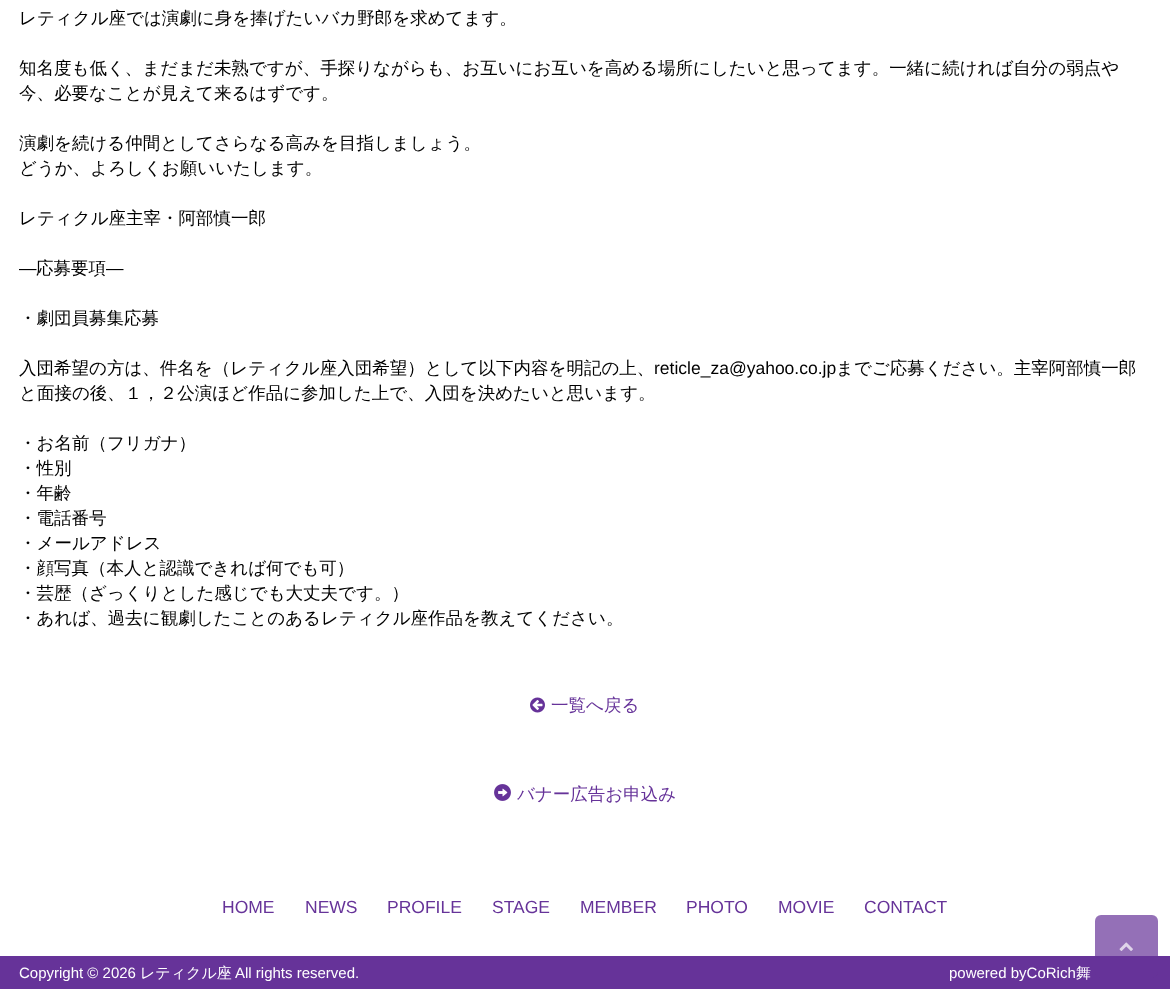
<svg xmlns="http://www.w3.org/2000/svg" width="1170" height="989">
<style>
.a{font:500 17.5px WenQuanYi Zen Hei;fill:#000}
.b{font:17.5px Liberation Sans;fill:#000}
.c{font:500 17.5px WenQuanYi Zen Hei;fill:#639}
.d{font:17.5px Liberation Sans;fill:#639}
.e{font:15px Liberation Sans;fill:#fff}
.f{font:500 15px WenQuanYi Zen Hei;fill:#fff}
</style>
<rect width="100%" height="100%" fill="#fff"/>
<image href="1.png" x="530" y="697" width="15" height="16"/>
<image href="2.png" x="494" y="784" width="17" height="17"/>
<path fill="#639" d="M0 956h1170v33H0z"/>
<rect fill="#663399b3" x="1095" y="915" width="63" height="63" rx="6"/>
<image href="3.png" x="1119" y="942" width="14" height="9"/>
<text class="a" x="19" y="24">レティクル座では演劇に身を捧げたいバカ野郎を求めてます。</text>
<text class="a" x="19" y="74">知名度も低く、まだまだ未熟ですが、手探りながらも、お互いにお互いを高める場所にしたいと思ってます。一緒に続ければ自分の弱点や</text>
<text class="a" x="19" y="99">今、必要なことが見えて来るはずです。</text>
<text class="a" x="19" y="149">演劇を続ける仲間としてさらなる高みを目指しましょう。</text>
<text class="a" x="19" y="174">どうか、よろしくお願いいたします。</text>
<text class="a" x="19" y="224">レティクル座主宰・阿部慎一郎</text>
<text class="b" x="19" y="274">―</text>
<text class="a" x="36" y="274">応募要項</text>
<text class="b" x="106" y="274">―</text>
<text class="a" x="19" y="324">・劇団員募集応募</text>
<text class="a" x="19" y="374">入団希望の方は、件名を（レティクル座入団希望）として以下内容を明記の上、</text>
<text class="b" x="654" y="374">reticle_za@yahoo.co.jp</text>
<text class="a" x="836" y="374">までご応募ください。主宰阿部慎一郎</text>
<text class="a" x="19" y="399">と面接の後、１，２公演ほど作品に参加した上で、入団を決めたいと思います。</text>
<text class="a" x="19" y="449">・お名前（フリガナ）</text>
<text class="a" x="19" y="474">・性別</text>
<text class="a" x="19" y="499">・年齢</text>
<text class="a" x="19" y="524">・電話番号</text>
<text class="a" x="19" y="549">・メールアドレス</text>
<text class="a" x="19" y="574">・顔写真（本人と認識できれば何でも可）</text>
<text class="a" x="19" y="599">・芸歴（ざっくりとした感じでも大丈夫です。）</text>
<text class="a" x="19" y="624">・あれば、過去に観劇したことのあるレティクル座作品を教えてください。</text>
<text class="c" x="551" y="711">一覧へ戻る</text>
<text class="c" x="517" y="800">バナー広告お申込み</text>
<text class="d" x="222" y="913">HOME</text>
<text class="d" x="305" y="913">NEWS</text>
<text class="d" x="387" y="913">PROFILE</text>
<text class="d" x="492" y="913">STAGE</text>
<text class="d" x="580" y="913">MEMBER</text>
<text class="d" x="686" y="913">PHOTO</text>
<text class="d" x="778" y="913">MOVIE</text>
<text class="d" x="864" y="913">CONTACT</text>
<text class="e" x="19" y="978">Copyright © 2026</text>
<text class="f" x="140" y="978">レティクル座</text>
<text class="e" x="235" y="978">All rights reserved.</text>
<text class="e" x="949" y="978">powered byCoRich</text>
<text class="f" x="1076" y="978">舞</text>
</svg>
